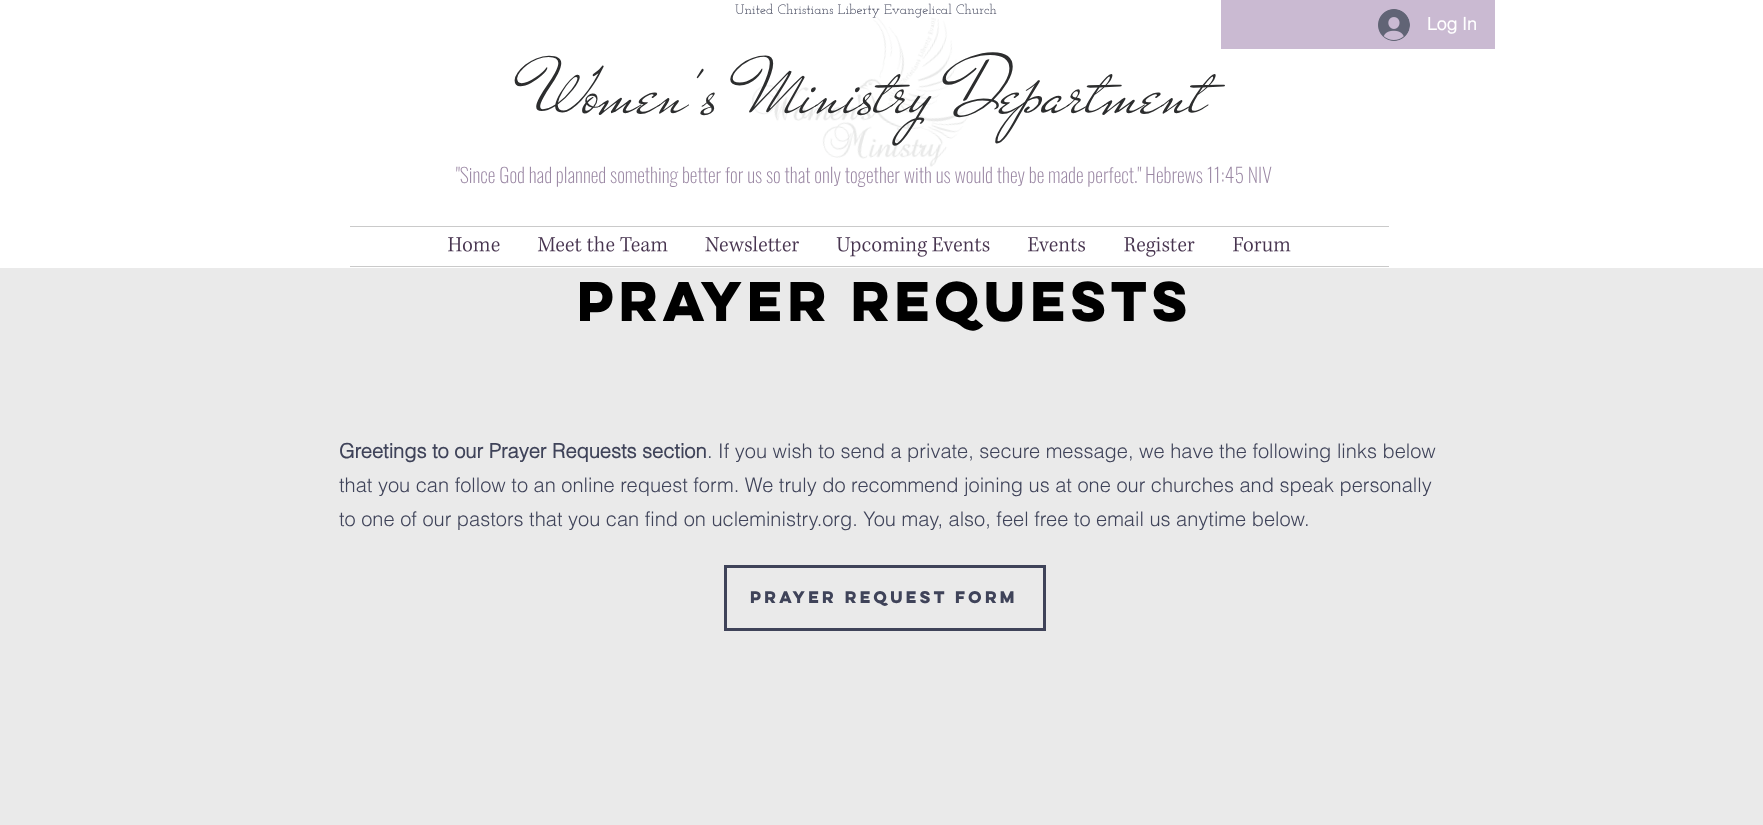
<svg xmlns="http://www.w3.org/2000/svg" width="1763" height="825">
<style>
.a{font:13.75px Josefin Slab;fill:#3f4359}
.b{font:bold 17.5px helvetica;fill:#fff}
.c{font:81.25px Mr De Haviland;fill:#2c2d2e}
.d{font:200 20px Oswald;fill:#9b88a4}
.e{font:bold 50px 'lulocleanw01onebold';letter-spacing:-6px;fill:#000}
.f{font:bold 20px helvetica;fill:#3f4359}
.g{font:300 20px helvetica;fill:#3f4359}
.h{font:bold 15px 'lulocleanw01onebold';fill:#3f4359}
</style>
<rect width="100%" height="100%" fill="#eaeaea"/>
<path fill="#fff" d="M0 0h1763v268H0z"/>
<image href="1.png" x="752" y="16" width="217" height="151"/>
<path fill="#cabad2" d="M1221 0h274v49H1221z"/>
<image href="2.png" x="1378" y="9" width="32" height="32"/>
<path fill="#cacaca" d="M350 226h1039v1H350z"/>
<path fill="#cacaca" d="M350 266h1039v1H350z"/>
<image href="3.png" x="448" y="237" width="52" height="15"/>
<image href="4.png" x="537" y="236" width="131" height="16"/>
<image href="5.png" x="705" y="236" width="94" height="16"/>
<image href="6.png" x="836" y="237" width="154" height="20"/>
<image href="7.png" x="1027" y="237" width="58" height="15"/>
<image href="8.png" x="1124" y="237" width="71" height="20"/>
<image href="9.png" x="1233" y="237" width="58" height="15"/>
<path fill="none" stroke="#3f4359" stroke-width="3" d="M725.5 566.5h319v63H725.5z"/>
<text class="a" x="735" y="14">United Christians Liberty Evangelical Church</text>
<text class="b" x="1427" y="30">Log In</text>
<text class="c" x="532" y="112">Women's Ministry Department</text>
<text class="d" x="456" y="183">"Since God had planned something better for us so that only together with us would they be made perfect." Hebrews 11:45 NIV</text>
<text class="e" x="577" y="321">Prayer requests</text>
<text class="f" x="339" y="458">Greetings to our Prayer Requests section</text>
<text class="g" x="707" y="458">. If you wish to send a private, secure message, we have the following links below</text>
<text class="g" x="339" y="492">that you can follow to an online request form. We truly do recommend joining us at one our churches and speak personally</text>
<text class="g" x="339" y="526">to one of our pastors that you can find on ucleministry.org. You may, also, feel free to email us anytime below.</text>
<text class="h" x="750" y="603">Prayer Request Form</text>
</svg>
